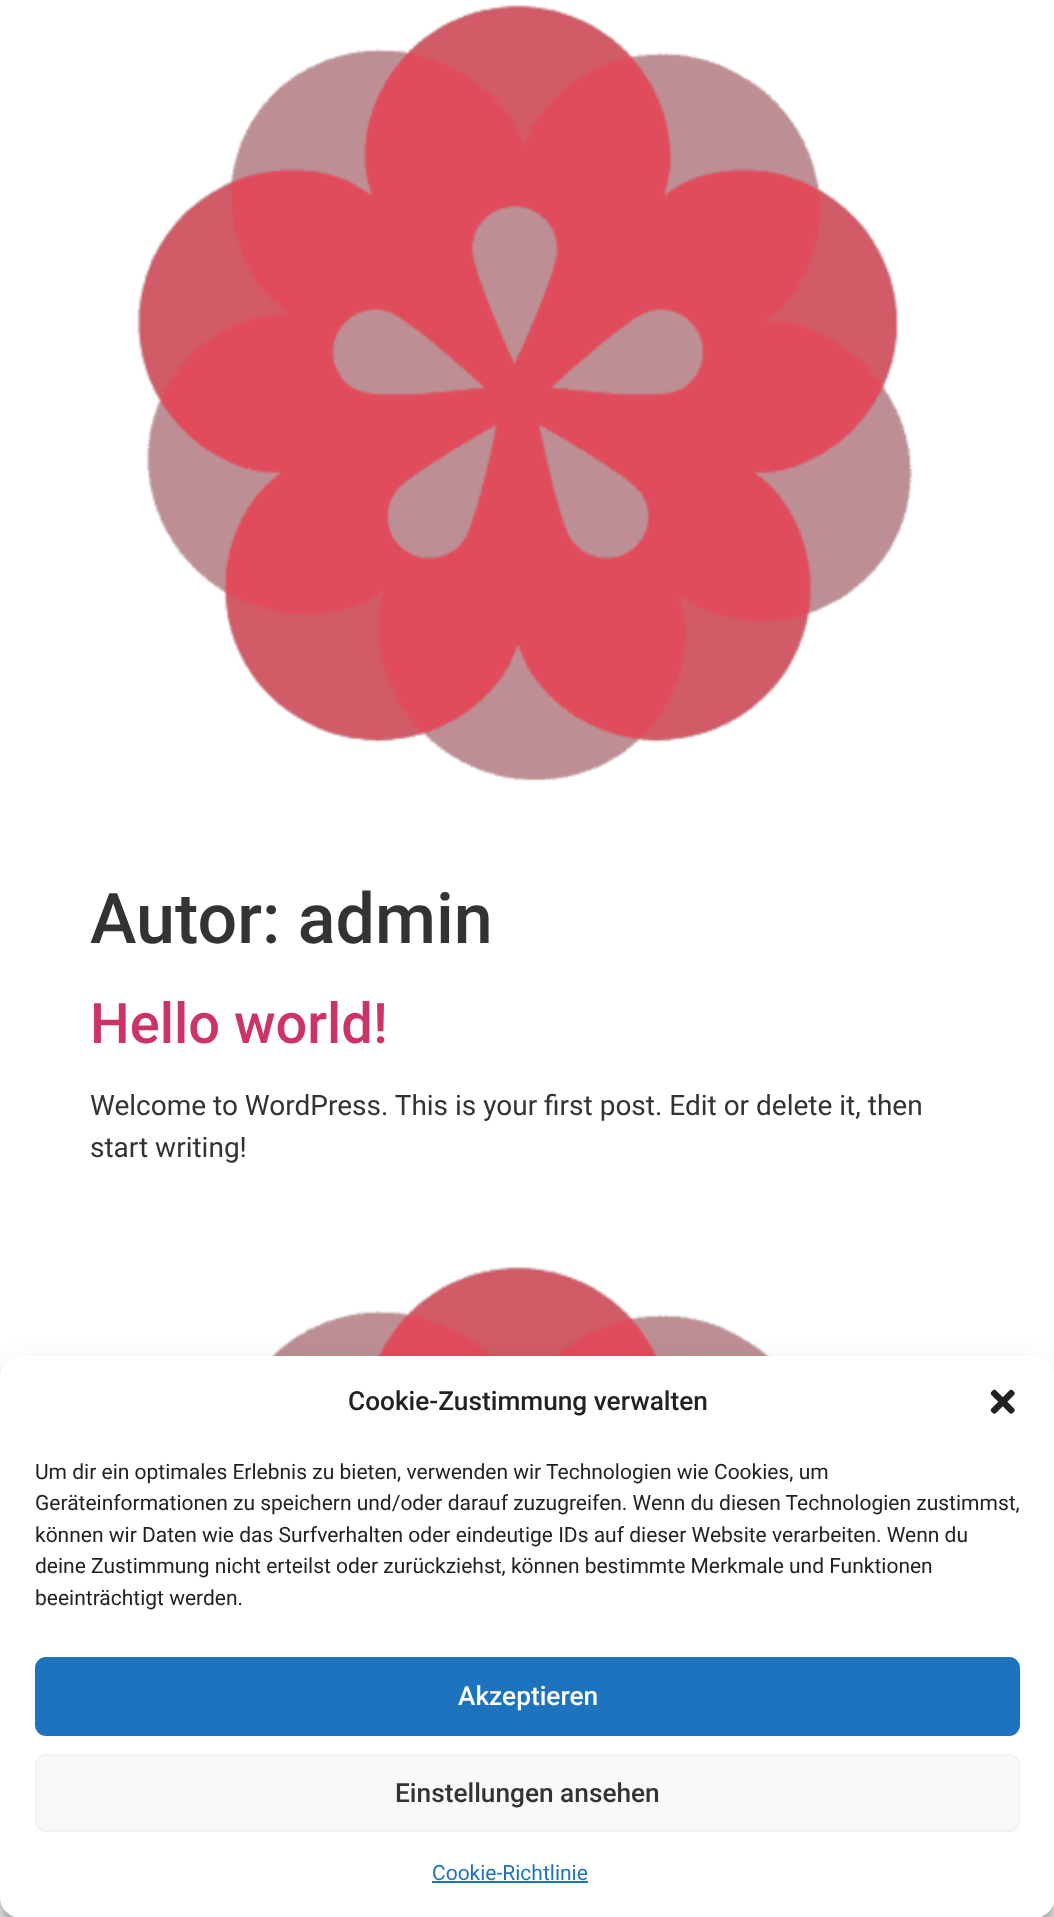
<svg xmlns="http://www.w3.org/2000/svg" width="1054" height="1917">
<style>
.a{font:500 70px Roboto;fill:#333}
.b{font:500 56px Roboto;fill:#c36}
.c{font:28px Roboto;fill:#333}
.d{font:500 26.25px Roboto;fill:#222}
.e{font:21px Roboto;fill:#222}
.f{font:500 26.25px Roboto;fill:#fff}
.g{font:500 26.25px Roboto;fill:#333}
.h{font:21px Roboto;fill:#1e73be}
</style>
<rect width="100%" height="100%" fill="#fff"/>
<image href="1.png" x="137" y="5" width="776" height="777"/>
<image href="2.png" x="272" y="1266" width="498" height="90"/>
<rect fill="#0000003b" filter="blur(5px)" y="1367" width="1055" height="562" rx="21"/>
<rect fill="#00000030" filter="blur(17.5px)" y="1374" width="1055" height="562" rx="21"/>
<rect fill="#fff" y="1356" width="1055" height="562" rx="21"/>
<image href="3.png" x="990" y="1389" width="25" height="25"/>
<rect fill="#1e73be" stroke="#1e73be" stroke-width="2" x="36" y="1658" width="983" height="77" rx="10"/>
<rect fill="#f9f9f9" stroke="#f2f2f2" stroke-width="2" x="36" y="1755" width="983" height="76" rx="10"/>
<path fill="#1e73be" d="M432 1881h156v2H432z"/>
<text class="a" x="90" y="943">Autor: admin</text>
<text class="b" x="90" y="1043">Hello world!</text>
<text class="c" x="90" y="1115">Welcome to WordPress. This is your first post. Edit or delete it, then</text>
<text class="c" x="90" y="1157">start writing!</text>
<text class="d" x="348" y="1410">Cookie-Zustimmung verwalten</text>
<text class="e" x="35" y="1479">Um dir ein optimales Erlebnis zu bieten, verwenden wir Technologien wie Cookies, um</text>
<text class="e" x="35" y="1510">Geräteinformationen zu speichern und/oder darauf zuzugreifen. Wenn du diesen Technologien zustimmst,</text>
<text class="e" x="35" y="1542">können wir Daten wie das Surfverhalten oder eindeutige IDs auf dieser Website verarbeiten. Wenn du</text>
<text class="e" x="35" y="1573">deine Zustimmung nicht erteilst oder zurückziehst, können bestimmte Merkmale und Funktionen</text>
<text class="e" x="35" y="1605">beeinträchtigt werden.</text>
<text class="f" x="458" y="1705">Akzeptieren</text>
<text class="g" x="395" y="1802">Einstellungen ansehen</text>
<text class="h" x="432" y="1880">Cookie-Richtlinie</text>
</svg>
